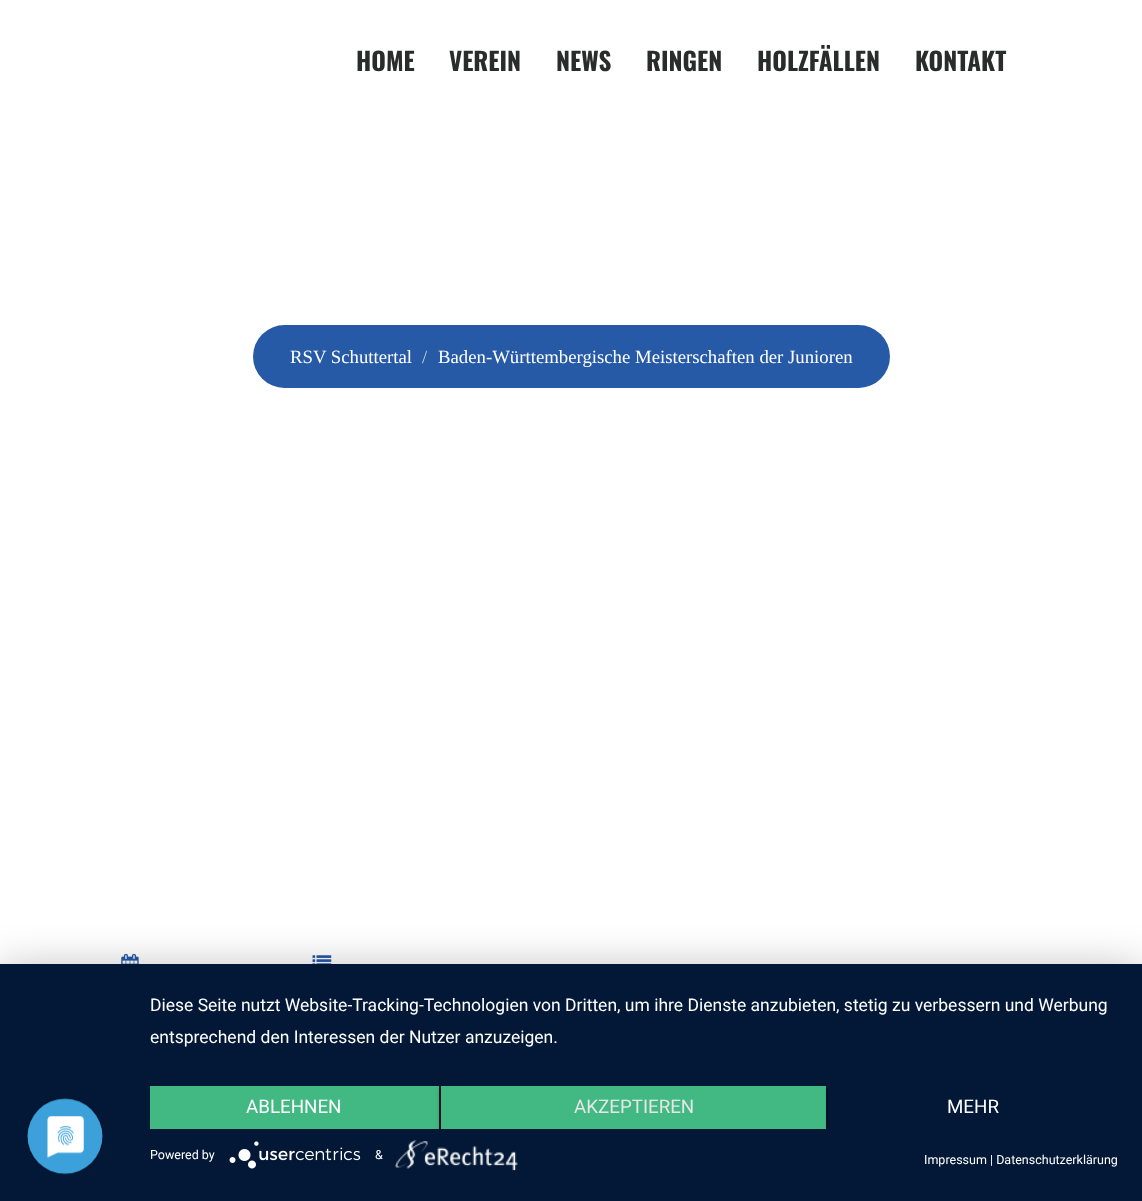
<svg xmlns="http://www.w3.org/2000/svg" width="1142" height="1201">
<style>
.a{font:bold 25px Oswald;fill:#2a2c2c}
.b{font:18.75px Liberation Serif;fill:#fff}
.c{font:18.75px Liberation Serif;fill:#ccc}
.d{font:17.5px Roboto;fill:#fff}
.e{font:18.75px Roboto;fill:#fff}
.f{font:18.75px Roboto;fill:#e6e6e6}
.g{font:12.5px Roboto;fill:#fff}
</style>
<defs>
<clipPath id="clip1"><path d="M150 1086h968v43H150z"/></clipPath>
</defs>
<rect width="100%" height="100%" fill="#fff"/>
<rect fill="#265aa6" x="253" y="325" width="637" height="63" rx="31.5"/>
<image href="1.png" x="121" y="953" width="18" height="11"/>
<image href="2.png" x="312" y="955" width="20" height="9"/>
<path fill="#0000004d" filter="blur(22.5px)" d="M0 971h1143v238H0z"/>
<path fill="#021836" d="M0 964h1142v237H0z"/>
<image href="3.png" x="26" y="1097" width="78" height="78"/>
<g clip-path="url(#clip1)">
<path fill="#00000066" filter="blur(2.5px)" d="M150 1088h289v42H150z"/>
</g>
<path fill="#42b983" d="M150 1086h289v43H150z"/>
<g clip-path="url(#clip1)">
<path fill="#00000066" filter="blur(2.5px)" d="M441 1088h385v42H441z"/>
</g>
<path fill="#42b983" d="M441 1086h385v43H441z"/>
<g clip-path="url(#clip1)">
<path fill="#00000066" filter="blur(2.5px)" d="M829 1088h289v42H829z"/>
</g>
<path fill="#021836" d="M829 1086h289v43H829z"/>
<image href="4.png" x="229" y="1141" width="132" height="28"/>
<image href="5.png" x="395" y="1140" width="123" height="31"/>
<text class="a" x="356" y="71">HOME</text>
<text class="a" x="449" y="71">VEREIN</text>
<text class="a" x="556" y="71">NEWS</text>
<text class="a" x="646" y="71">RINGEN</text>
<text class="a" x="757" y="71">HOLZFÄLLEN</text>
<text class="a" x="915" y="71">KONTAKT</text>
<text class="b" x="290" y="363">RSV Schuttertal</text>
<text class="c" x="422" y="363">/</text>
<text class="b" x="438" y="363">Baden-Württembergische Meisterschaften der Junioren</text>
<text class="d" x="150" y="1011">Diese Seite nutzt Website-Tracking-Technologien von Dritten, um ihre Dienste anzubieten, stetig zu verbessern und Werbung</text>
<text class="d" x="150" y="1043">entsprechend den Interessen der Nutzer anzuzeigen.</text>
<text class="e" x="246" y="1113">ABLEHNEN</text>
<text class="f" x="574" y="1113">AKZEPTIEREN</text>
<text class="e" x="947" y="1113">MEHR</text>
<text class="g" x="150" y="1159">Powered by</text>
<text class="g" x="375" y="1159">&amp;</text>
<text class="g" x="924" y="1164">Impressum | Datenschutzerklärung</text>
</svg>
